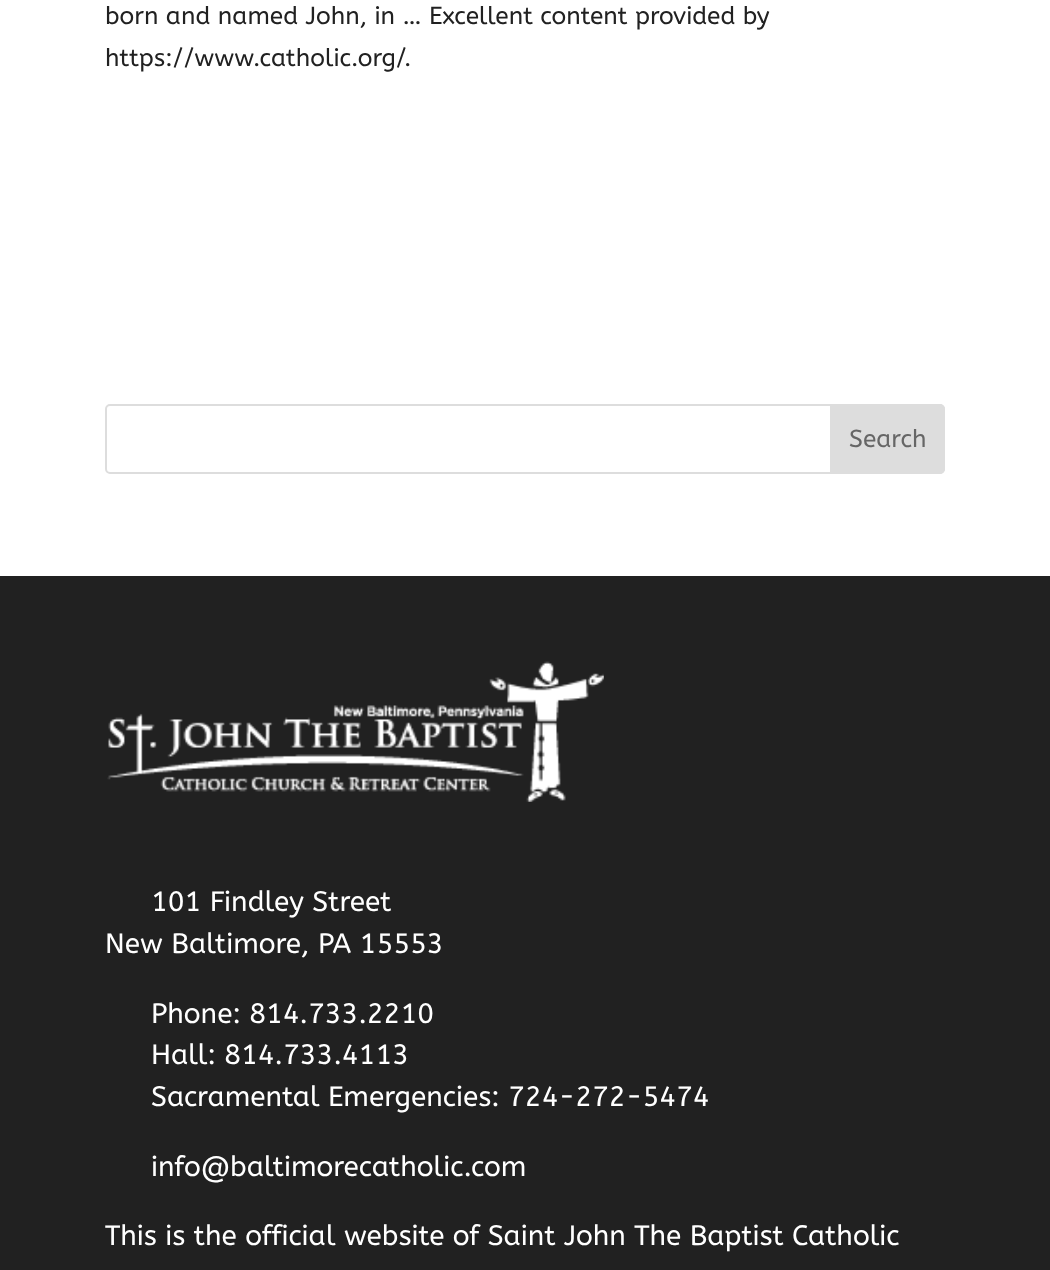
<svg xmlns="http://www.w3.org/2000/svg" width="1050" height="1270">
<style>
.a{font:24.5px ABeeZee;fill:#212121}
.b{font:24.5px ABeeZee;fill:#666}
.c{font:28px ABeeZee;fill:#fff}
</style>
<rect width="100%" height="100%" fill="#fff"/>
<rect fill="none" stroke="#ddd" stroke-width="2" x="106" y="405" width="838" height="68" rx="4"/>
<path fill="#ddd" stroke="#ddd" stroke-width="2" d="M831 405h109c2 0 4 2 4 4v60c0 2-2 4-4 4h-109z"/>
<path fill="#212121" d="M0 576h1050v694H0z"/>
<image href="1.png" x="107" y="661" width="497" height="141"/>
<text class="a" x="105" y="24">born and named John, in … Excellent content provided by</text>
<text class="a" x="105" y="66">https://www.catholic.org/.</text>
<text class="b" x="849" y="447">Search</text>
<text class="c" x="151" y="911">101 Findley Street</text>
<text class="c" x="105" y="953">New Baltimore, PA 15553</text>
<text class="c" x="151" y="1023">Phone: 814.733.2210</text>
<text class="c" x="151" y="1064">Hall: 814.733.4113</text>
<text class="c" x="151" y="1106">Sacramental Emergencies: 724-272-5474</text>
<text class="c" x="151" y="1176">info@baltimorecatholic.com</text>
<text class="c" x="105" y="1245">This is the official website of Saint John The Baptist Catholic</text>
</svg>
